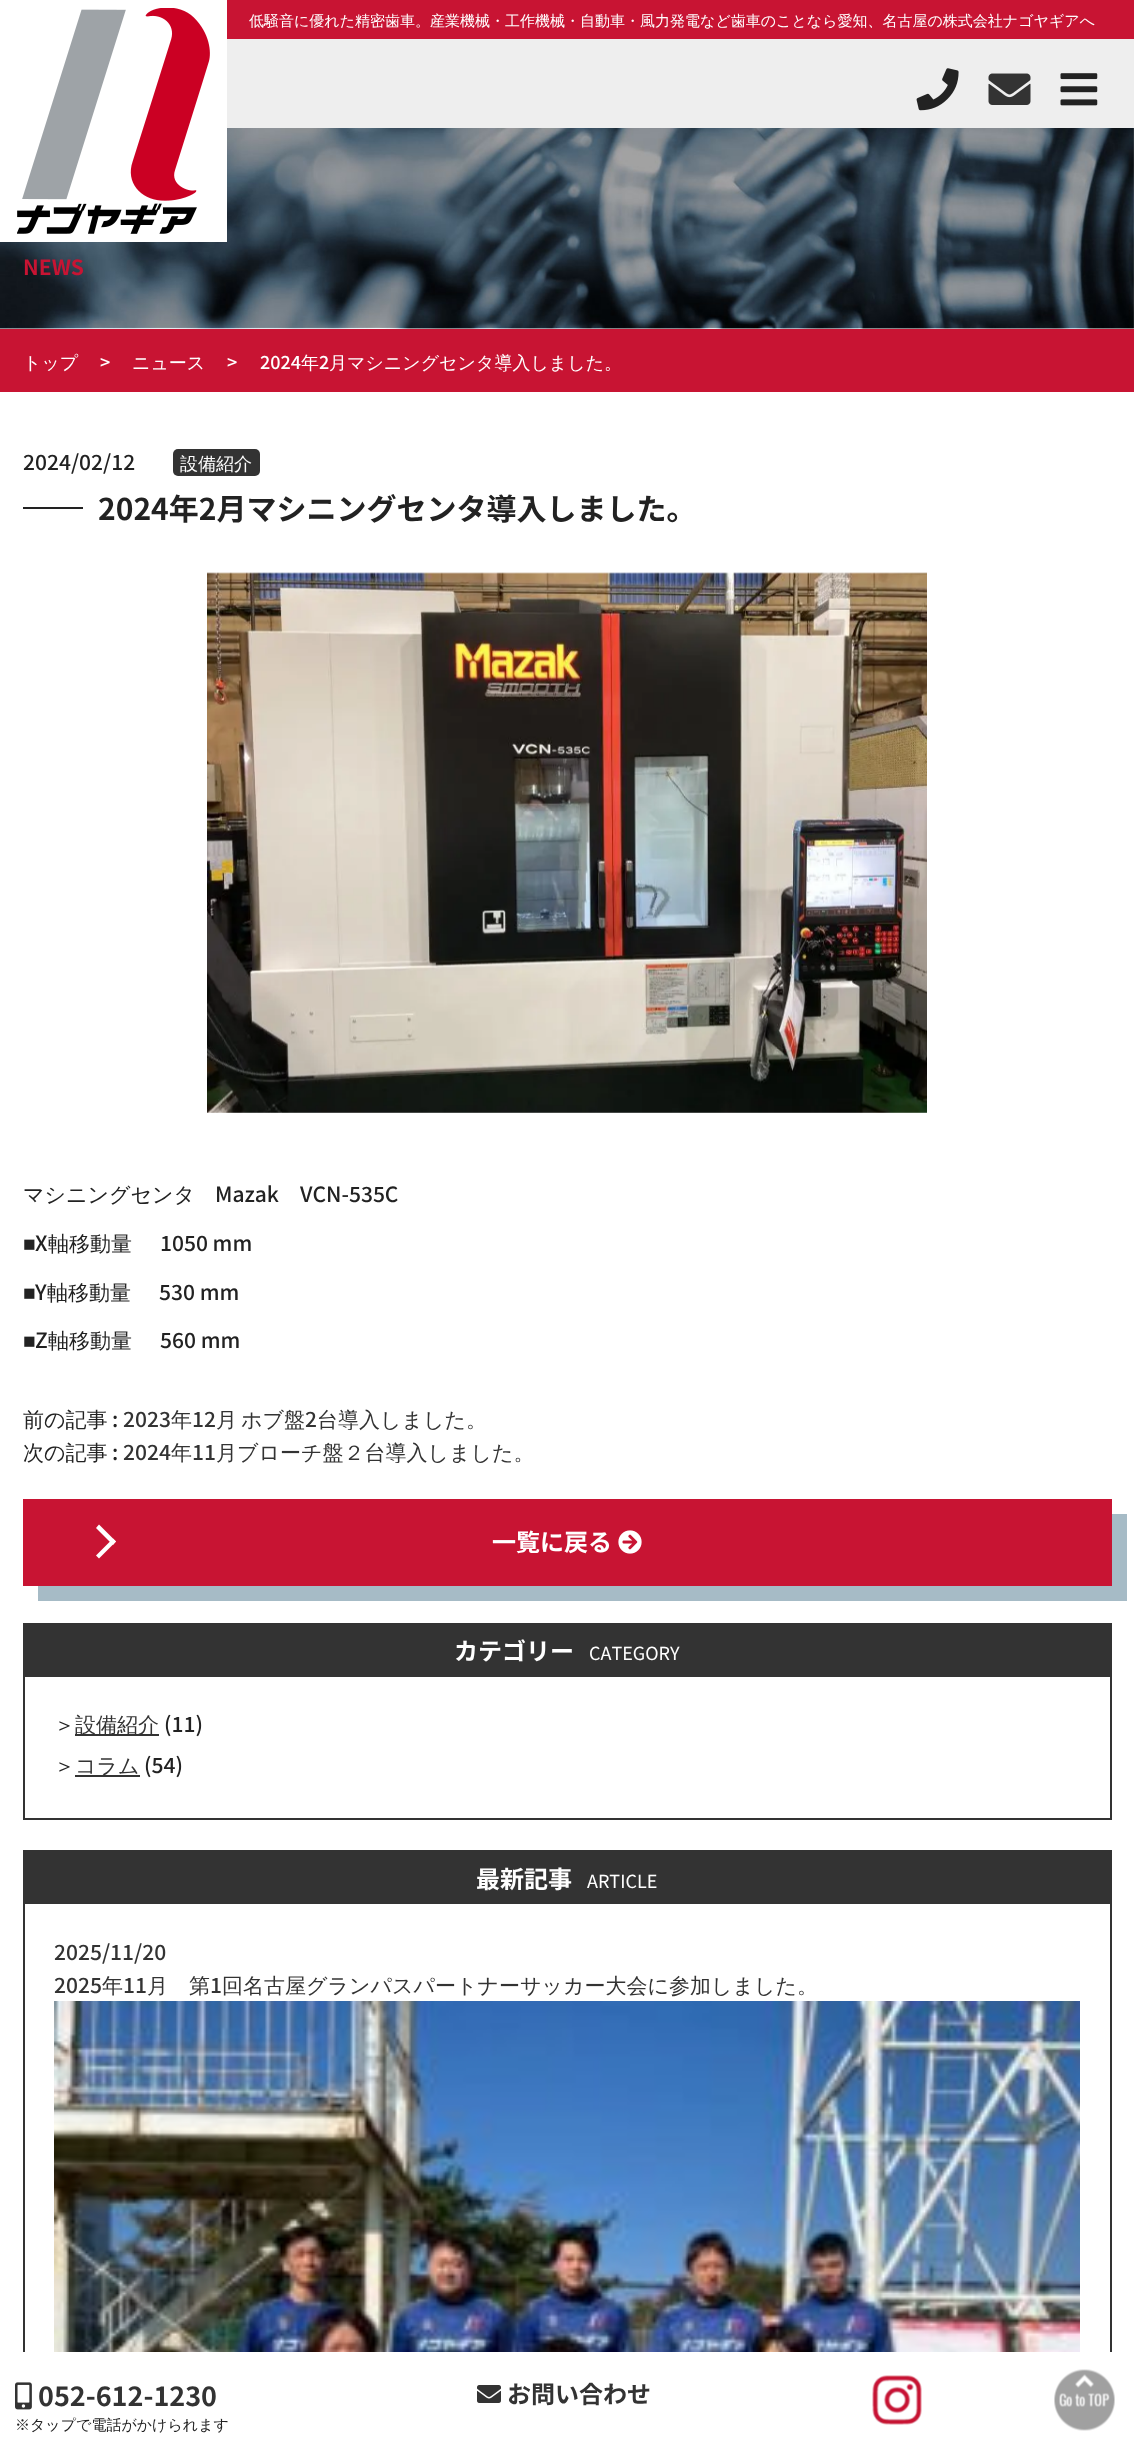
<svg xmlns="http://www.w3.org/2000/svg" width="1134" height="2446">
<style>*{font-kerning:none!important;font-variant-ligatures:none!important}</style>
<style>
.a{font:500 15px WenQuanYi Zen Hei;fill:#fff}
.b{font:bold 21px Noto Sans JP;fill:#c81433}
.c{font:500 18px WenQuanYi Zen Hei;fill:#fff}
.d{font:500 18px Noto Sans JP;fill:#fff}
.e{font:500 21px Noto Sans JP;fill:#222}
.f{font:bold 30px 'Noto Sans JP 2';fill:#222}
.g{font:500 21px WenQuanYi Zen Hei;fill:#222}
.h{font:21px Liberation Sans;fill:#222}
.i{font:500 21px Noto Sans JP;fill:#333}
.j{font:500 21px WenQuanYi Zen Hei;fill:#333}
.k{font:bold 24px 'Noto Sans JP 2';fill:#fff}
.l{font:18px Noto Sans JP;fill:#fff}
.m{font:bold 27px Noto Sans JP;fill:#333}
.n{font:500 15px WenQuanYi Zen Hei;fill:#222}
.o{font:bold 24px 'Noto Sans JP 2';fill:#333}
</style>
<rect width="100%" height="100%" fill="#fff"/>
<image href="5.png" x="0" y="128" width="1134" height="201"/>
<path fill="#fff" d="M0 128h227v114H0z"/>
<image href="1.png" x="17" y="8" width="193" height="226"/>
<path fill="#c81433" d="M227 0h907v39H227z"/>
<path fill="#eee" d="M227 39h907v89H227z"/>
<image href="2.png" x="916" y="68" width="43" height="43"/>
<image href="3.png" x="988" y="73" width="43" height="32"/>
<image href="4.png" x="1060" y="73" width="38" height="33"/>
<path fill="#c81433" d="M0 329h1134v63H0z"/>
<rect fill="#333" x="173" y="449" width="87" height="27" rx="5"/>
<path fill="#222" d="M23 507h60v2H23z"/>
<image href="6.png" x="207" y="572" width="720" height="541"/>
<path fill="#a6bbc6" d="M38 1586v15h1089v-87h-15v72z"/>
<path fill="#c81433" d="M23 1499h1089v87H23z"/>
<path fill="#fff" d="M99 1524.5l17 17l-3 3.5l-17-17z"/>
<path fill="#fff" d="M113 1538.5l3 3l-17 17l-3-3z"/>
<image href="7.png" x="618" y="1530" width="24" height="24"/>
<path fill="#333" d="M23 1623h1089v54H23z"/>
<path fill="#333" d="M1110 1677h2v143H1110z"/>
<path fill="#333" d="M23 1818h1089v2H23z"/>
<path fill="#333" d="M23 1677h2v143H23z"/>
<path fill="#333" d="M75 1734h84v2H75z"/>
<path fill="#333" d="M75 1775h65v2H75z"/>
<path fill="#333" d="M23 1850h1089v54H23z"/>
<path fill="#333" d="M1110 1904h2v448H1110z"/>
<path fill="#333" d="M23 1904h2v448H23z"/>
<image href="8.png" x="54" y="2001" width="1026" height="351"/>
<image href="9.png" x="15" y="2382" width="17" height="28"/>
<image href="10.png" x="477" y="2385" width="24" height="18"/>
<image href="11.png" x="872" y="2375" width="50" height="50"/>
<image href="12.png" x="1054" y="2369" width="61" height="62"/>
<text class="a" x="249" y="26">低騒音に優れた精密歯車。産業機械・工作機械・自動車・風力発電など歯車のことなら愛知、名古屋の株式会社ナゴヤギアへ</text>
<text class="b" x="23" y="275">NEWS</text>
<text class="c" x="23" y="369">トップ</text>
<text class="d" x="100" y="369">&gt;</text>
<text class="c" x="132" y="369">ニュース</text>
<text class="d" x="227" y="369">&gt;</text>
<text class="d" x="260" y="369">2024</text>
<text class="c" x="301" y="369">年</text>
<text class="d" x="319" y="369">2</text>
<text class="c" x="329" y="369">月マシニングセンタ導入しました。</text>
<text class="e" x="23" y="470">2024/02/12</text>
<text class="c" x="180" y="470">設備紹介</text>
<text class="f" x="98" y="520">2024年2月マシニングセンタ導入しました。</text>
<text class="g" x="23" y="1202">マシニングセンタ</text>
<text class="e" x="215" y="1202">Mazak</text>
<text class="e" x="300" y="1202">VCN-535C</text>
<text class="h" x="23" y="1251">■</text>
<text class="e" x="35" y="1251">X</text>
<text class="g" x="48" y="1251">軸移動量</text>
<text class="e" x="160" y="1251">1050 mm</text>
<text class="h" x="23" y="1300">■</text>
<text class="e" x="35" y="1300">Y</text>
<text class="g" x="47" y="1300">軸移動量</text>
<text class="e" x="159" y="1300">530 mm</text>
<text class="h" x="23" y="1348">■</text>
<text class="e" x="35" y="1348">Z</text>
<text class="g" x="48" y="1348">軸移動量</text>
<text class="e" x="160" y="1348">560 mm</text>
<text class="g" x="23" y="1427">前の記事</text>
<text class="e" x="112" y="1427">:</text>
<text class="i" x="123" y="1427">2023</text>
<text class="j" x="171" y="1427">年</text>
<text class="i" x="192" y="1427">12</text>
<text class="j" x="216" y="1427">月</text>
<text class="j" x="241" y="1427">ホブ盤</text>
<text class="i" x="305" y="1427">2</text>
<text class="j" x="317" y="1427">台導入しました。</text>
<text class="g" x="23" y="1460">次の記事</text>
<text class="e" x="112" y="1460">:</text>
<text class="i" x="123" y="1460">2024</text>
<text class="j" x="171" y="1460">年</text>
<text class="i" x="192" y="1460">11</text>
<text class="j" x="216" y="1460">月ブローチ盤２台導入しました。</text>
<text class="k" x="492" y="1551">一覧に戻る</text>
<text class="k" x="454" y="1660">カテゴリー</text>
<text class="l" x="589" y="1660">CATEGORY</text>
<text class="g" x="54" y="1732">＞</text>
<text class="j" x="75" y="1732">設備紹介</text>
<text class="e" x="164" y="1732">(11)</text>
<text class="g" x="54" y="1773">＞</text>
<text class="j" x="75" y="1773">コラム</text>
<text class="e" x="144" y="1773">(54)</text>
<text class="k" x="476" y="1888">最新記事</text>
<text class="l" x="587" y="1888">ARTICLE</text>
<text class="i" x="54" y="1960">2025/11/20</text>
<text class="i" x="54" y="1993">2025</text>
<text class="j" x="102" y="1993">年</text>
<text class="i" x="123" y="1993">11</text>
<text class="j" x="147" y="1993">月　第</text>
<text class="i" x="210" y="1993">1</text>
<text class="j" x="222" y="1993">回名古屋グランパスパートナーサッカー大会に参加しました。</text>
<text class="m" x="38" y="2406">052-612-1230</text>
<text class="n" x="15" y="2430">※タップで電話がかけられます</text>
<text class="o" x="507" y="2403">お問い合わせ</text>
</svg>
